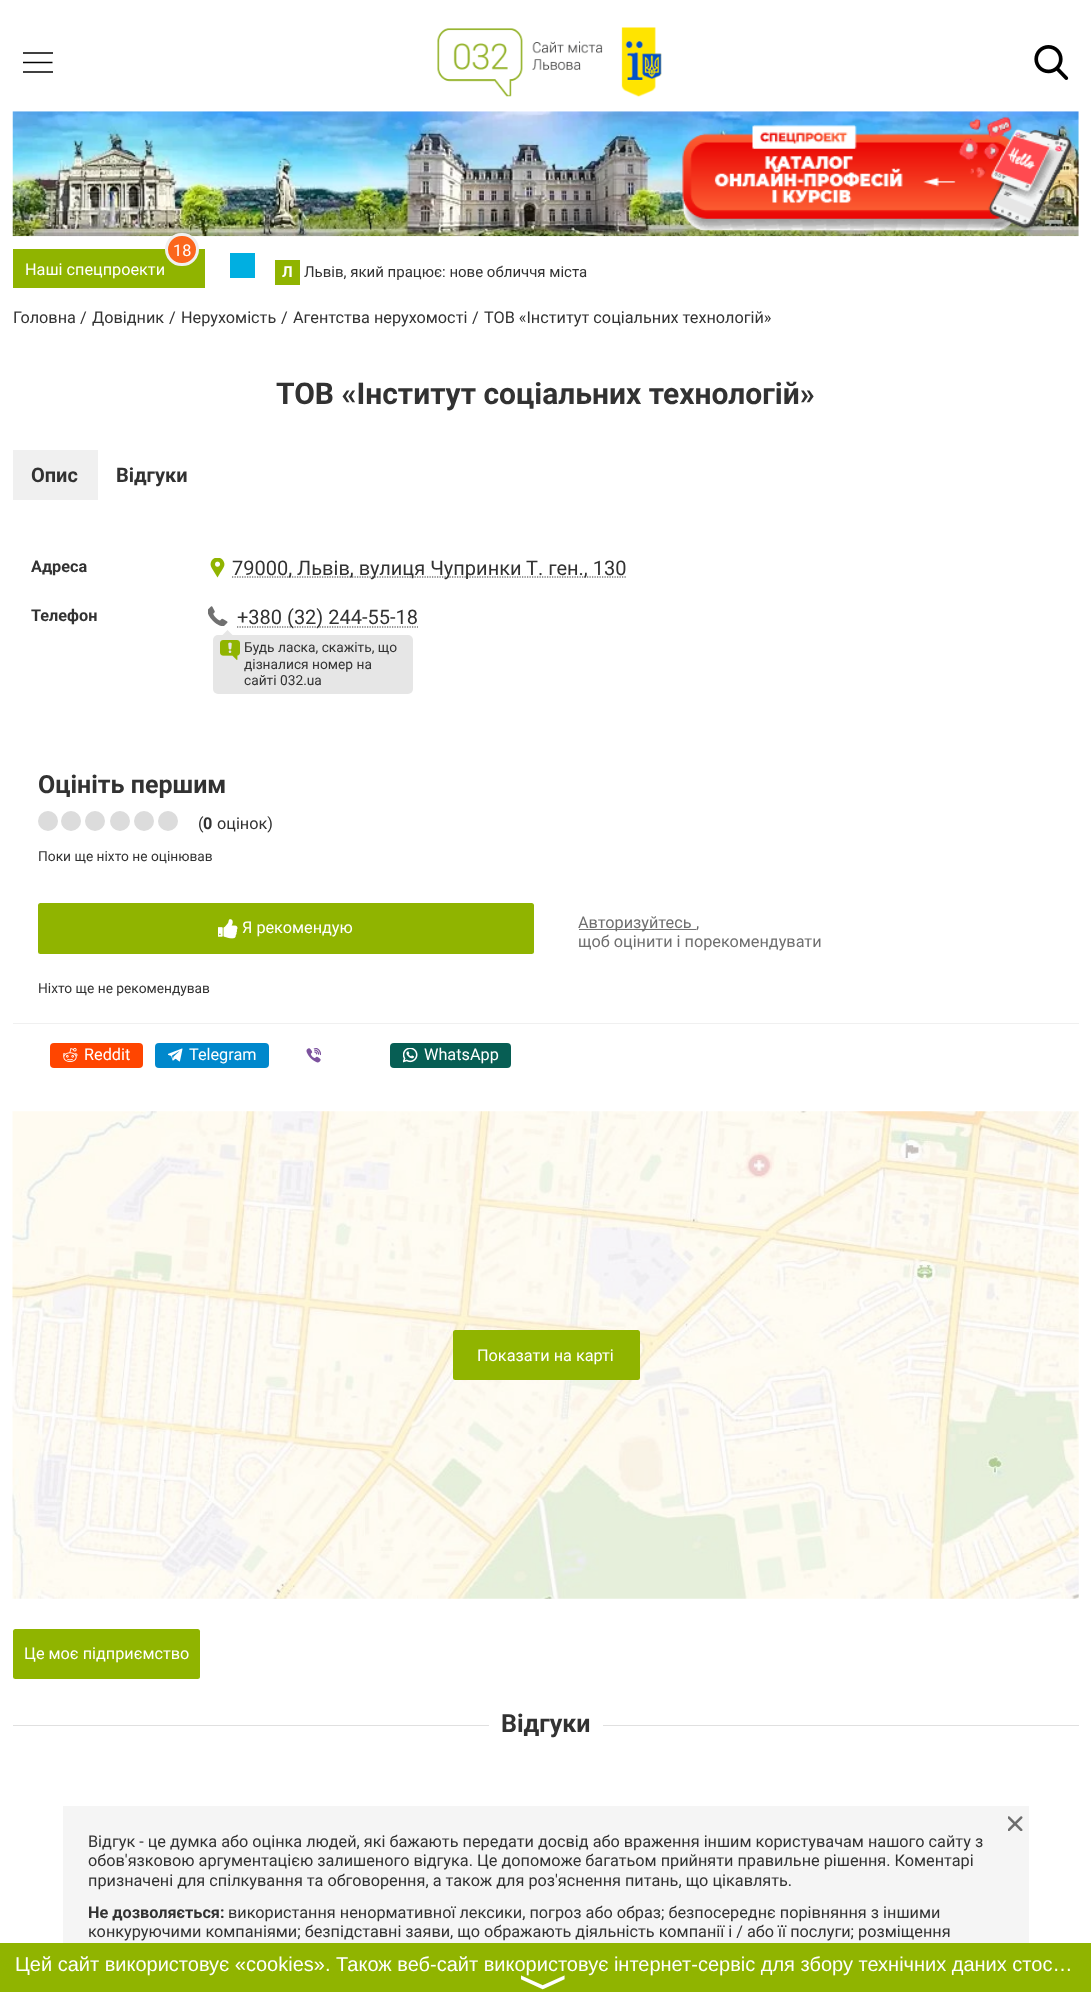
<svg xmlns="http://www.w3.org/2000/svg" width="1091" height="1992">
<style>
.a{font:16.25px Roboto;fill:#fff}
.b{font:bold 15px Roboto;fill:#fff}
.c{font:15px Roboto;fill:#323232}
.d{font:16.25px Roboto;fill:#323232}
.e{font:bold 30px Roboto;fill:#323232}
.f{font:bold 20px Roboto;fill:#323232}
.g{font:bold 16.25px Roboto;fill:#323232}
.h{font:20px Roboto;fill:#323232}
.i{font:13.75px Roboto;fill:#323232}
.j{font:bold 25px Roboto;fill:#323232}
.k{font:16.25px Roboto;fill:#6f6f6f}
.l{font:20px Liberation Sans;fill:#fff}
.m{font:50px FreeSans;fill:#fff}
</style>
<defs>
<clipPath id="clip1"><path d="M23 48h30v30H23z"/></clipPath>
</defs>
<rect width="100%" height="100%" fill="#fff"/>
<path fill="#404040" d="M23 52h30v2H23z"/>
<g clip-path="url(#clip1)">
<path fill="none" stroke="#000" stroke-width="1.5" d="M22.5 62.5h30"/>
</g>
<path fill="#404040" d="M23 71h30v2H23z"/>
<image href="1.png" x="437" y="27" width="225" height="70"/>
<image href="2.png" x="1034" y="45" width="35" height="35"/>
<image href="3.png" x="12" y="111" width="1067" height="126"/>
<image href="4.png" x="682" y="116" width="397" height="118"/>
<path fill="#90b400" d="M13 249h192v39H13z"/>
<rect fill="#fb661c" stroke="#f0f0f0" stroke-width="3" x="166.5" y="234.5" width="31" height="30" rx="15"/>
<path fill="#00afe1" d="M230 253h25v25H230z"/>
<path fill="#90b400" d="M275 260h25v25H275z"/>
<path fill="#f0f0f0" d="M13 450h85v50H13z"/>
<image href="5.png" x="210" y="558" width="15" height="20"/>
<path fill="none" stroke="#323232" stroke-width="1.2" stroke-dasharray="1.25 1.25" d="M232 577h395"/>
<image href="6.png" x="208" y="606" width="20" height="20"/>
<path fill="none" stroke="#323232" stroke-width="1.2" stroke-dasharray="1.25 1.25" d="M237 627h181"/>
<rect fill="#e6e6e6" x="213" y="635" width="200" height="59" rx="5"/>
<path fill="#e6e6e6" d="M232.5 635h-10l5-5z"/>
<image href="7.png" x="220" y="640" width="20" height="20"/>
<circle fill="#dcdcdc" cx="48" cy="821" r="10"/>
<circle fill="#dcdcdc" cx="71" cy="821" r="10"/>
<circle fill="#dcdcdc" cx="95" cy="821" r="10"/>
<circle fill="#dcdcdc" cx="120" cy="821" r="10"/>
<circle fill="#dcdcdc" cx="144" cy="821" r="10"/>
<circle fill="#dcdcdc" cx="168" cy="821" r="10"/>
<rect fill="#90b400" x="38" y="903" width="496" height="51" rx="2.5"/>
<image href="8.png" x="218" y="919" width="20" height="20"/>
<path fill="#707070" d="M579 929h117v1H579z"/>
<path fill="#f0f0f0" d="M13 1023h1066v1H13z"/>
<rect fill="#ff4500" x="50" y="1043" width="93" height="25" rx="4"/>
<image href="9.png" x="63" y="1048" width="15" height="14"/>
<rect fill="#08c" x="155" y="1043" width="114" height="25" rx="4"/>
<image href="10.png" x="168" y="1048" width="15" height="14"/>
<image href="11.png" x="306" y="1048" width="15" height="15"/>
<rect fill="#075e54" x="390" y="1043" width="121" height="25" rx="4"/>
<image href="12.png" x="403" y="1048" width="15" height="15"/>
<image href="13.png" x="12" y="1111" width="1067" height="488"/>
<rect fill="#90b400" x="453" y="1330" width="187" height="50" rx="2.5"/>
<rect fill="#90b400" x="13" y="1629" width="187" height="50" rx="2.5"/>
<path fill="#e0e0e0" d="M13 1725h476v1H13z"/>
<path fill="#e0e0e0" d="M603 1725h476v1H603z"/>
<path fill="#f5f5f5" d="M63 1806h966v137H63z"/>
<image href="14.png" x="1008" y="1816" width="15" height="15"/>
<path fill="#90b400" d="M0 1943h1091v49H0z"/>
<text class="a" x="173" y="256">18</text>
<text class="a" x="25" y="275">Наші спецпроекти</text>
<text class="b" x="282" y="277">Л</text>
<text class="c" x="304" y="277">Львів, який працює: нове обличчя міста</text>
<text class="d" x="13" y="323">Головна</text>
<text class="d" x="80" y="323">/</text>
<text class="d" x="92" y="323">Довідник</text>
<text class="d" x="169" y="323">/</text>
<text class="d" x="181" y="323">Нерухомість</text>
<text class="d" x="281" y="323">/</text>
<text class="d" x="293" y="323">Агентства нерухомості</text>
<text class="d" x="472" y="323">/</text>
<text class="d" x="484" y="323">ТОВ «Інститут соціальних технологій»</text>
<text class="e" x="276" y="404">ТОВ «Інститут соціальних технологій»</text>
<text class="f" x="31" y="482">Опис</text>
<text class="f" x="116" y="482">Відгуки</text>
<text class="g" x="31" y="572">Адреса</text>
<text class="h" x="232" y="575">79000, Львів, вулиця Чупринки Т. ген., 130</text>
<text class="g" x="31" y="621">Телефон</text>
<text class="h" x="237" y="624">+380 (32) 244-55-18</text>
<text class="i" x="244" y="652">Будь ласка, скажіть, що</text>
<text class="i" x="244" y="669">дізналися номер на</text>
<text class="i" x="244" y="685">сайті 032.ua</text>
<text class="j" x="38" y="793">Оцініть першим</text>
<text class="d" x="198" y="829">(</text>
<text class="g" x="203" y="829">0</text>
<text class="d" x="217" y="829">оцінок)</text>
<text class="i" x="38" y="861">Поки ще ніхто не оцінював</text>
<text class="a" x="242" y="933">Я рекомендую</text>
<text class="i" x="38" y="993">Ніхто ще не рекомендував</text>
<text class="k" x="578" y="928">Авторизуйтесь</text>
<text class="k" x="696" y="928">,</text>
<text class="k" x="578" y="947">щоб оцінити і порекомендувати</text>
<text class="a" x="84" y="1060">Reddit</text>
<text class="a" x="189" y="1060">Telegram</text>
<text class="a" x="424" y="1060">WhatsApp</text>
<text class="a" x="477" y="1361">Показати на карті</text>
<text class="a" x="24" y="1659">Це моє підприємство</text>
<text class="j" x="501" y="1732">Відгуки</text>
<text class="d" x="88" y="1847">Відгук - це думка або оцінка людей, які бажають передати досвід або враження іншим користувачам нашого сайту з</text>
<text class="d" x="88" y="1866">обов'язковою аргументацією залишеного відгука. Це допоможе багатьом прийняти правильне рішення. Коментарі</text>
<text class="d" x="88" y="1886">призначені для спілкування та обговорення, а також для роз'яснення питань, що цікавлять.</text>
<text class="g" x="88" y="1918">Не дозволяється:</text>
<text class="d" x="228" y="1918">використання ненормативної лексики, погроз або образ; безпосереднє порівняння з іншими</text>
<text class="d" x="88" y="1937">конкуруючими компаніями; безпідставні заяви, що ображають діяльність компанії і / або її послуги; розміщення</text>
<text class="l" x="15" y="1971">Цей сайт використовує «cookies». Також веб-сайт використовує інтернет-сервіс для збору технічних даних стос…</text>
<text class="m" x="528" y="1974" transform="rotate(90 528 1974)">〉</text>
</svg>
